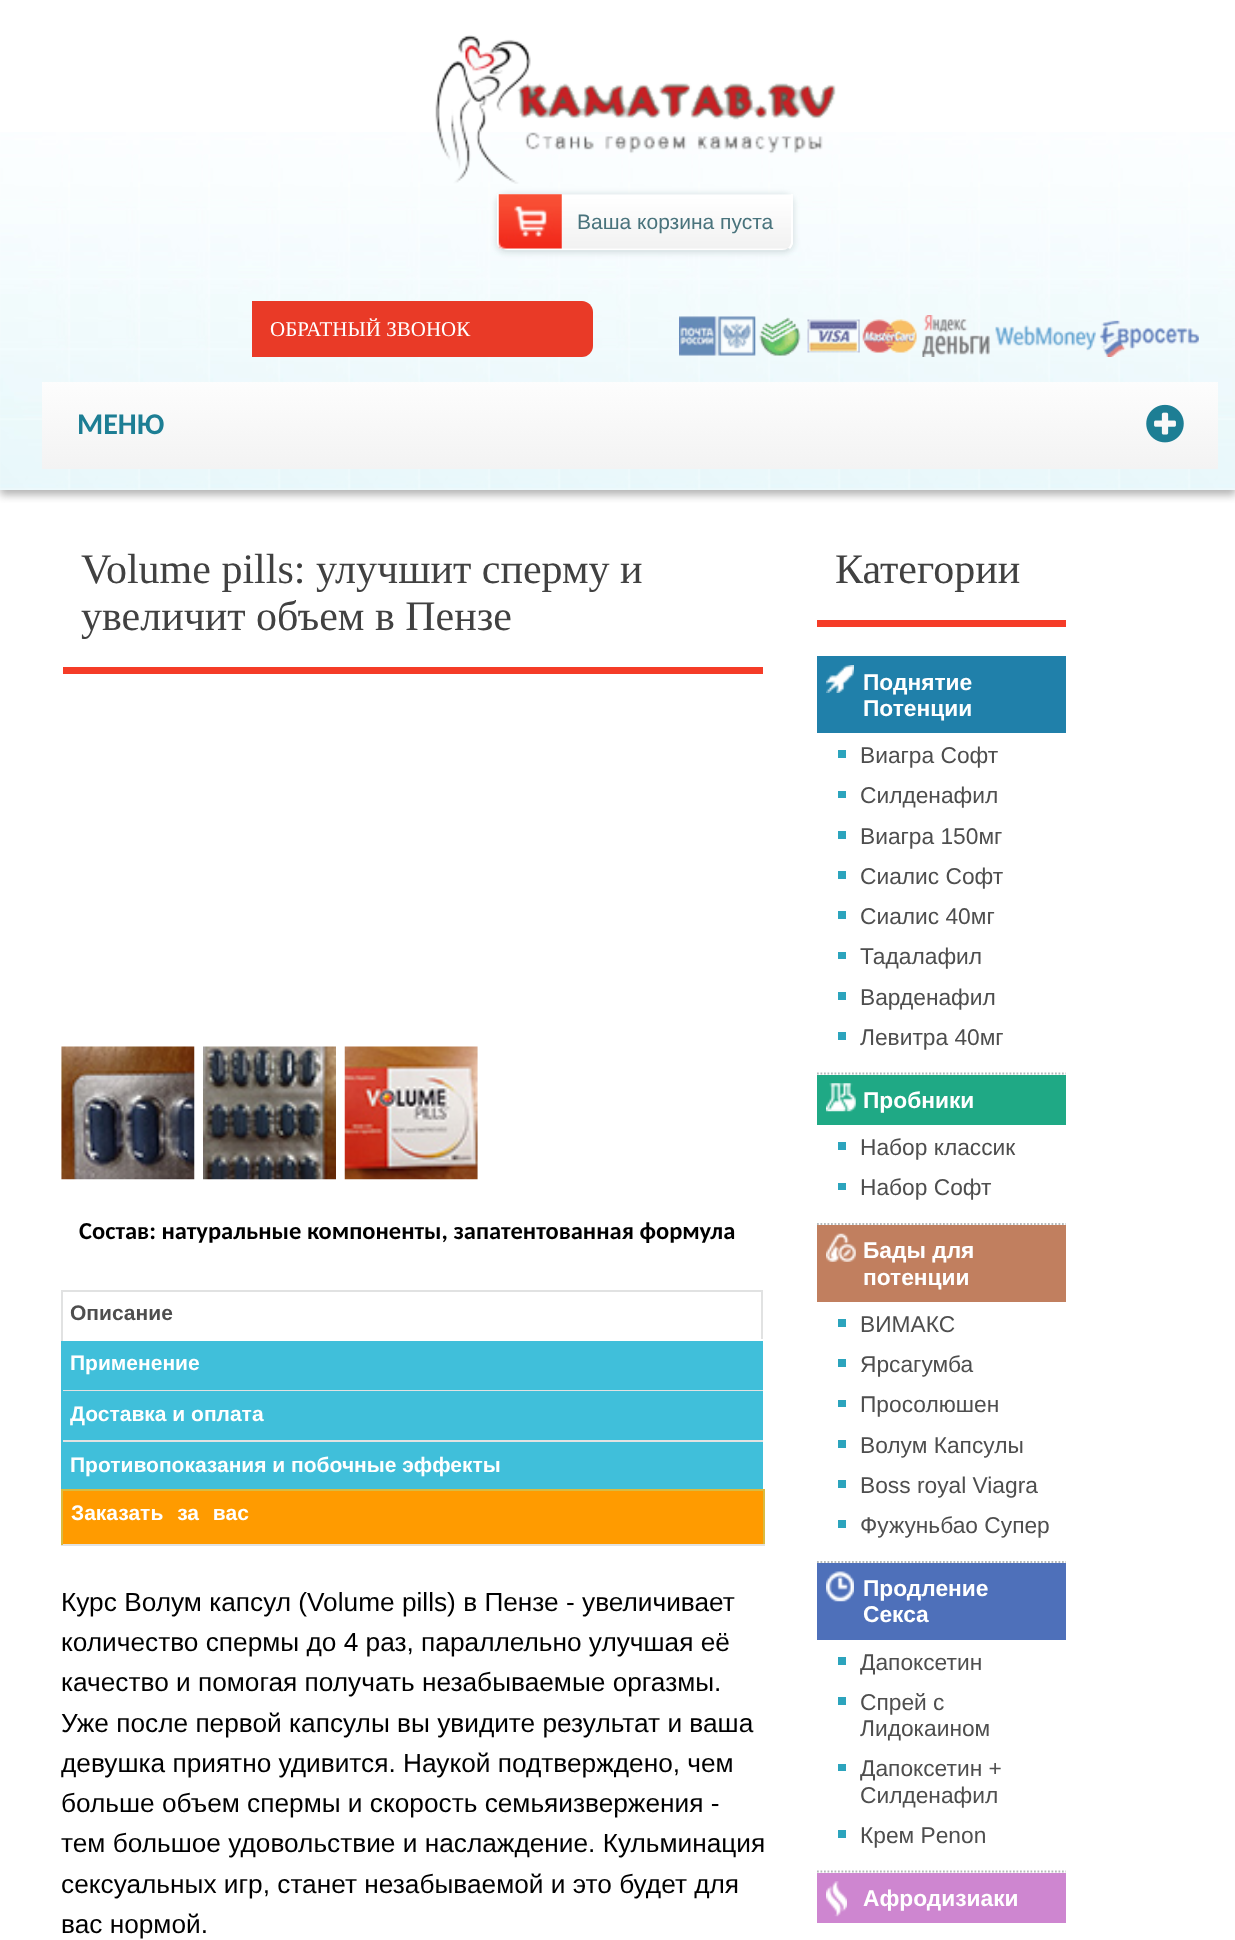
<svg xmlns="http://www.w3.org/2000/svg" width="1235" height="1940">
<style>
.a{font:21px Liberation Sans;fill:#49737c}
.b{font:21px Liberation Serif;fill:#fff}
.c{font:bold 30px Carlito;fill:#1d7e94}
.d{font:42px Liberation Serif;fill:#414141}
.e{font:bold 24.5px Carlito;fill:#000}
.f{font:bold 21px Liberation Sans;fill:#4e4e4e}
.g{font:bold 21px Liberation Sans;fill:#fff}
.h{font:26.25px Liberation Sans;fill:#000}
.i{font:bold 22.75px Liberation Sans;fill:#fff}
.j{font:22.75px Liberation Sans;fill:#4e4e4e}
</style>
<defs>
<clipPath id="clip1"><path d="M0 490h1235v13H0z"/></clipPath>
<linearGradient id="g1" gradientUnits="userSpaceOnUse" x1="630" y1="381" x2="630" y2="469"><stop offset="0" stop-color="#fdfdfd"/><stop offset="1" stop-color="#f3f3f3"/></linearGradient>
</defs>
<rect width="100%" height="100%" fill="#fff"/>
<g clip-path="url(#clip1)">
<path fill="#6464647d" filter="blur(4.5px)" d="M0 5h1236v490H0z"/>
</g>
<image href="1.png" x="0" y="132" width="1235" height="358"/>
<image href="2.png" x="435" y="35" width="401" height="149"/>
<rect fill="#dee7e9" filter="blur(2.5px)" x="495" y="193" width="300" height="61" rx="12"/>
<image href="3.png" x="497" y="194" width="296" height="56"/>
<path fill="#fff" d="M793 194v50c-1 2-2 4-3 5l-2-1c2-2 3-4 3-6v-48z"/>
<path fill="#dee7e9" d="M508 252h274c3 0 6-1 8-3l-2-1c-1 1-4 2-6 2h-274c-3 0-5-1-6-3l-2 2c2 2 5 3 8 3z"/>
<path fill="#fff" d="M497 194v48c0 2 1 5 3 7l2-2c-2-1-3-3-3-5v-48z"/>
<image href="4.png" x="498" y="194" width="64" height="55"/>
<path fill="#e93a27" d="M252 301h330c6 0 11 5 11 11v34c0 6-5 11-11 11h-330z"/>
<image href="5.png" x="679" y="315" width="520" height="42"/>
<path fill="url(#g1)" d="M42 382h1176v87H42z"/>
<image href="6.png" x="1146" y="404" width="38" height="39"/>
<path fill="#f53c28" d="M63 667h700v7H63z"/>
<image href="7.png" x="61" y="1046" width="134" height="134"/>
<image href="8.png" x="203" y="1046" width="133" height="134"/>
<image href="9.png" x="344" y="1046" width="134" height="134"/>
<path fill="#e1e2e2" d="M61 1290h702v2H61z"/>
<path fill="#e1e2e2" d="M761 1290h2v51H761z"/>
<path fill="#fff" d="M761 1339h2v2H761z"/>
<path fill="#e1e2e2" d="M61 1290h2v51H61z"/>
<path fill="#40bfda" d="M63 1341h700v49H63z"/>
<path fill="#e1e2e2" d="M61 1390h702v1H61z"/>
<path fill="#40bfda" d="M61 1341h2v50H61z"/>
<path fill="#40bfda" d="M63 1391h700v49H63z"/>
<path fill="#e1e2e2" d="M61 1440h702v2H61z"/>
<path fill="#40bfda" d="M61 1391h2v102H61z"/>
<path fill="#40bfda" d="M63 1442h700v47H63z"/>
<path fill="#ff9b00" d="M63 1491h700v53H63z"/>
<path fill="#dabb40" d="M61 1489h704v2H61z"/>
<path fill="#dabb40" d="M763 1489h2v56H763z"/>
<path fill="#e1e2e2" d="M61 1544h704v2H61z"/>
<path fill="#dabb40" d="M61 1489h2v56H61z"/>
<path fill="#f53c28" d="M817 620h249v7H817z"/>
<path fill="#2080aa" d="M817 656h249v77H817z"/>
<image href="10.png" x="826" y="665" width="28" height="28"/>
<path fill="none" stroke="#b3b8b9" stroke-width="1.8" stroke-dasharray="1.75 1.75" d="M817 1073.5h249"/>
<path fill="#2ca4bd" d="M838 750h8v8H838z"/>
<path fill="#2ca4bd" d="M838 791h8v7H838z"/>
<path fill="#2ca4bd" d="M838 831h8v8H838z"/>
<path fill="#2ca4bd" d="M838 871h8v8H838z"/>
<path fill="#2ca4bd" d="M838 911h8v8H838z"/>
<path fill="#2ca4bd" d="M838 952h8v7H838z"/>
<path fill="#2ca4bd" d="M838 992h8v8H838z"/>
<path fill="#2ca4bd" d="M838 1032h8v8H838z"/>
<path fill="#1fa985" d="M817 1075h249v50H817z"/>
<image href="11.png" x="826" y="1083" width="30" height="29"/>
<path fill="none" stroke="#b3b8b9" stroke-width="1.8" stroke-dasharray="1.75 1.75" d="M817 1224h249"/>
<path fill="#2ca4bd" d="M838 1142h8v8H838z"/>
<path fill="#2ca4bd" d="M838 1183h8v7H838z"/>
<path fill="#c17f5f" d="M817 1225h249v77H817z"/>
<image href="12.png" x="826" y="1233" width="30" height="29"/>
<path fill="none" stroke="#b3b8b9" stroke-width="1.8" stroke-dasharray="1.75 1.75" d="M817 1562h249"/>
<path fill="#2ca4bd" d="M838 1319h8v8H838z"/>
<path fill="#2ca4bd" d="M838 1359h8v8H838z"/>
<path fill="#2ca4bd" d="M838 1400h8v7H838z"/>
<path fill="#2ca4bd" d="M838 1440h8v8H838z"/>
<path fill="#2ca4bd" d="M838 1480h8v8H838z"/>
<path fill="#2ca4bd" d="M838 1520h8v8H838z"/>
<path fill="#4e70ba" d="M817 1563h249v77H817z"/>
<image href="13.png" x="826" y="1571" width="28" height="31"/>
<path fill="none" stroke="#b3b8b9" stroke-width="1.8" stroke-dasharray="1.75 1.75" d="M817 1871.5h249"/>
<path fill="#2ca4bd" d="M838 1657h8v8H838z"/>
<path fill="#2ca4bd" d="M838 1697h8v8H838z"/>
<path fill="#2ca4bd" d="M838 1764h8v7H838z"/>
<path fill="#2ca4bd" d="M838 1830h8v8H838z"/>
<path fill="#ce86d0" d="M817 1873h249v50H817z"/>
<image href="14.png" x="826" y="1881" width="21" height="36"/>
<text class="a" x="577" y="229">Ваша корзина пуста</text>
<text class="b" x="270" y="336">ОБРАТНЫЙ ЗВОНОК</text>
<text class="c" x="77" y="434">МЕНЮ</text>
<text class="d" x="81" y="583">Volume pills: улучшит сперму и</text>
<text class="d" x="81" y="630">увеличит объем в Пензе</text>
<text class="e" x="79" y="1239">Состав: натуральные компоненты, запатентованная формула</text>
<text class="f" x="70" y="1320">Описание</text>
<text class="g" x="70" y="1370">Применение</text>
<text class="g" x="70" y="1421">Доставка и оплата</text>
<text class="g" x="70" y="1472">Противопоказания и побочные эффекты</text>
<text class="g" x="71" y="1520" word-spacing="8">Заказать за вас</text>
<text class="h" x="61" y="1611">Курс Волум капсул (Volume pills) в Пензе - увеличивает</text>
<text class="h" x="61" y="1651">количество спермы до 4 раз, параллельно улучшая её</text>
<text class="h" x="61" y="1691">качество и помогая получать незабываемые оргазмы.</text>
<text class="h" x="61" y="1732">Уже после первой капсулы вы увидите результат и ваша</text>
<text class="h" x="61" y="1772">девушка приятно удивится. Наукой подтверждено, чем</text>
<text class="h" x="61" y="1812">больше объем спермы и скорость семьяизвержения -</text>
<text class="h" x="61" y="1852">тем большое удовольствие и наслаждение. Кульминация</text>
<text class="h" x="61" y="1893">сексуальных игр, станет незабываемой и это будет для</text>
<text class="h" x="61" y="1933">вас нормой.</text>
<text class="d" x="835" y="583">Категории</text>
<text class="i" x="863" y="690">Поднятие</text>
<text class="i" x="863" y="716">Потенции</text>
<text class="j" x="860" y="763">Виагра Софт</text>
<text class="j" x="860" y="803">Силденафил</text>
<text class="j" x="860" y="844">Виагра 150мг</text>
<text class="j" x="860" y="884">Сиалис Софт</text>
<text class="j" x="860" y="924">Сиалис 40мг</text>
<text class="j" x="860" y="964">Тадалафил</text>
<text class="j" x="860" y="1005">Варденафил</text>
<text class="j" x="860" y="1045">Левитра 40мг</text>
<text class="i" x="863" y="1108">Пробники</text>
<text class="j" x="860" y="1155">Набор классик</text>
<text class="j" x="860" y="1195">Набор Софт</text>
<text class="i" x="863" y="1258">Бады для</text>
<text class="i" x="863" y="1285">потенции</text>
<text class="j" x="860" y="1332">ВИМАКС</text>
<text class="j" x="860" y="1372">Ярсагумба</text>
<text class="j" x="860" y="1412">Просолюшен</text>
<text class="j" x="860" y="1453">Волум Капсулы</text>
<text class="j" x="860" y="1493">Boss royal Viagra</text>
<text class="j" x="860" y="1533">Фужуньбао Супер</text>
<text class="i" x="863" y="1596">Продление</text>
<text class="i" x="863" y="1622">Секса</text>
<text class="j" x="860" y="1670">Дапоксетин</text>
<text class="j" x="860" y="1710">Спрей с</text>
<text class="j" x="860" y="1736">Лидокаином</text>
<text class="j" x="860" y="1776">Дапоксетин +</text>
<text class="j" x="860" y="1803">Силденафил</text>
<text class="j" x="860" y="1843">Крем Penon</text>
<text class="i" x="863" y="1906">Афродизиаки</text>
</svg>
